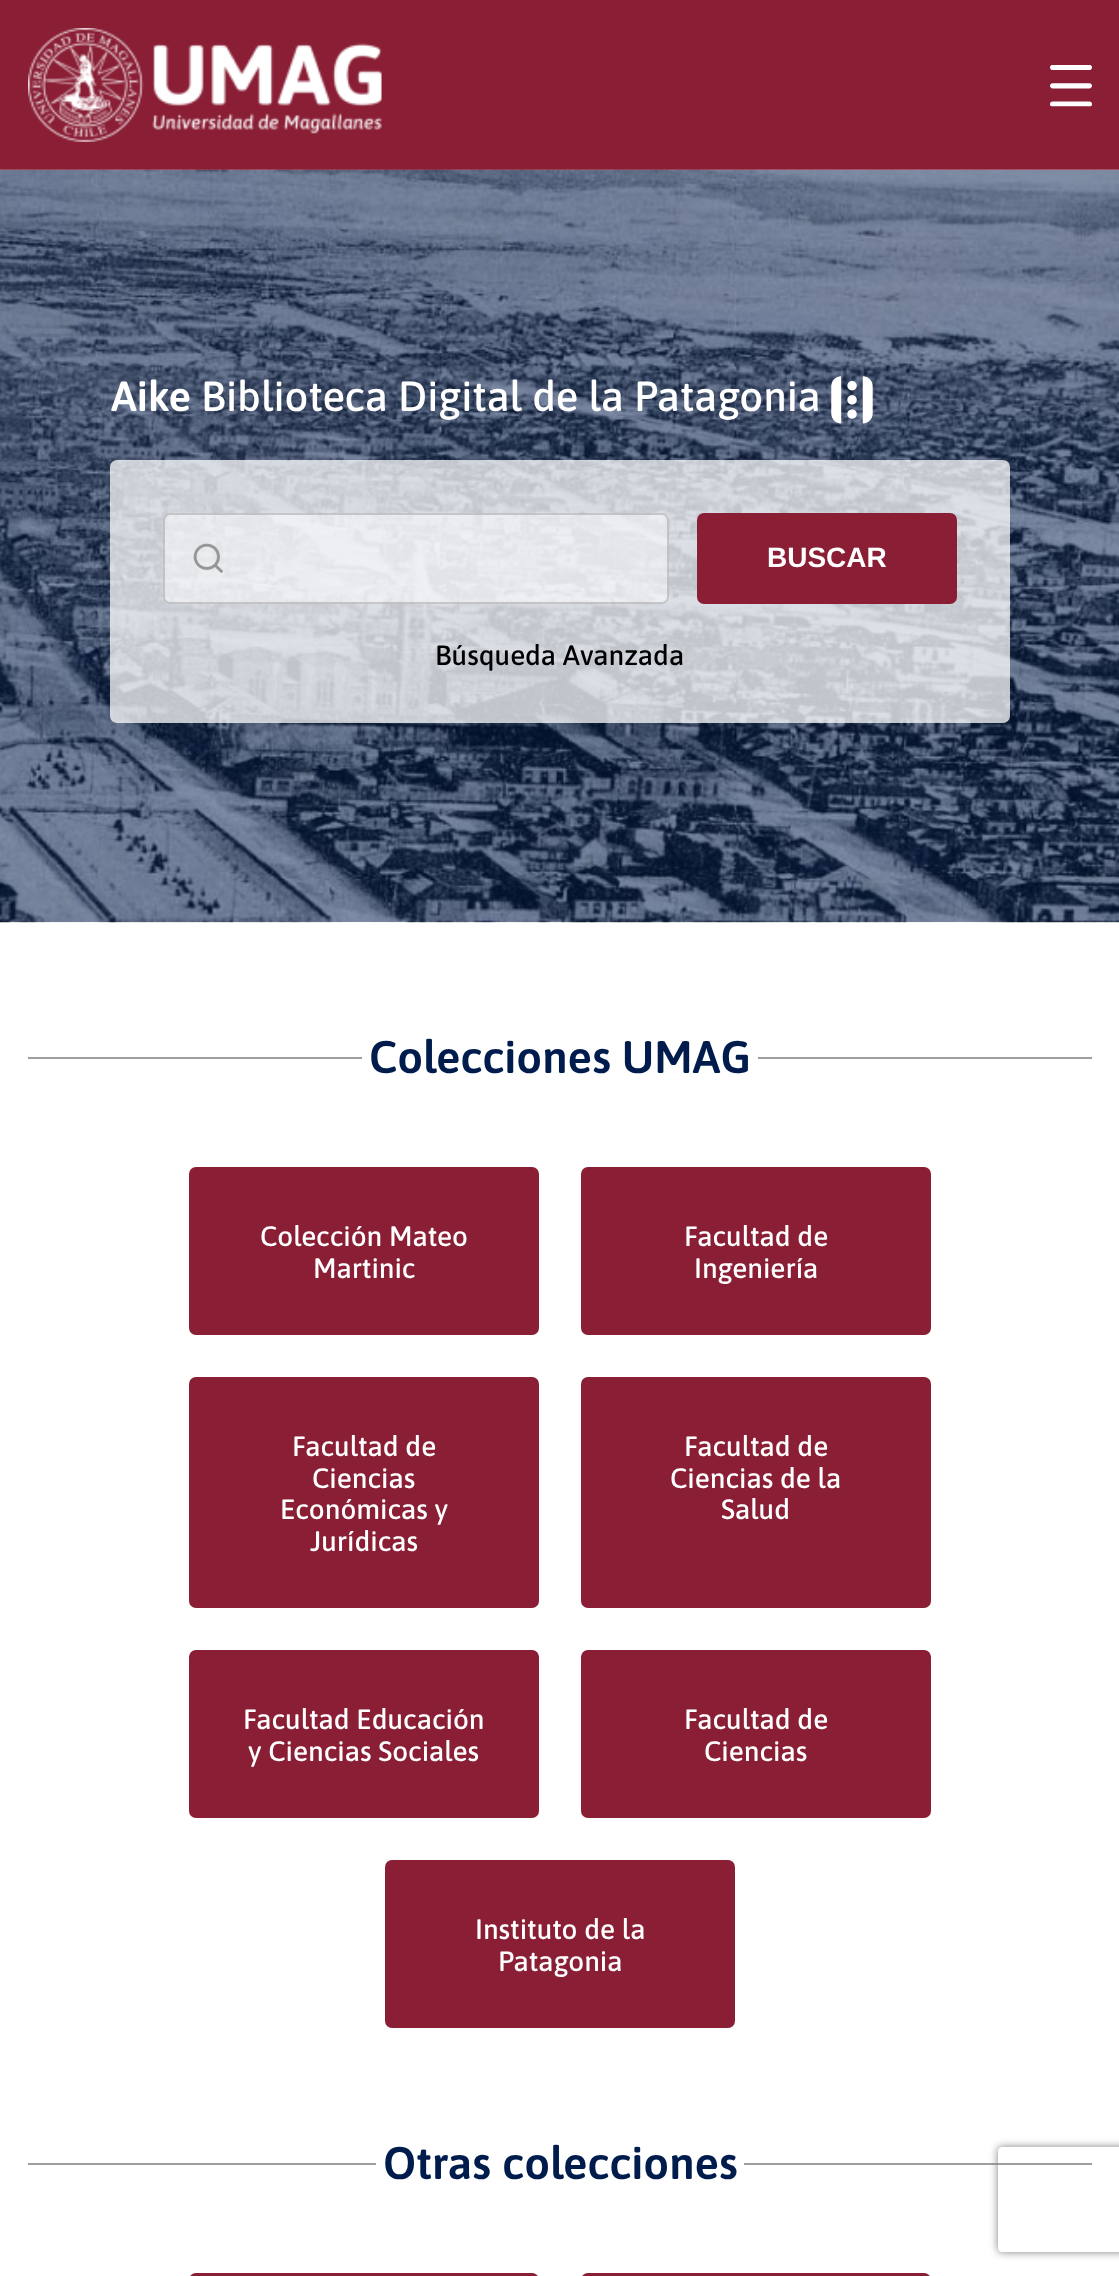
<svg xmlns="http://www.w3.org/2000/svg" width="1119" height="2276">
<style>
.a{font:600 42px Asap;fill:#fff}
.b{font:500 42px Asap;fill:#fff}
.c{font:bold 28px Liberation Sans;fill:#fff}
.d{font:500 28px Asap;fill:#000}
.e{font:600 45.5px Asap;fill:#001c4d}
.f{font:500 28px Asap;fill:#fff}
</style>
<defs>
<clipPath id="clip1"><path d="M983 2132h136v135h-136zm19 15h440c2 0 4 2 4 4v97c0 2-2 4-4 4h-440c-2 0-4-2-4-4v-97c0-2 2-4 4-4z" clip-rule="evenodd"/></clipPath>
</defs>
<rect width="100%" height="100%" fill="#fff"/>
<path fill="#891e35" d="M0 0h1119v170H0z"/>
<image href="1.png" x="28" y="28" width="354" height="114"/>
<image href="2.png" x="1050" y="65" width="42" height="42"/>
<image href="3.png" x="0" y="169" width="1119" height="754"/>
<image href="4.png" x="831" y="376" width="42" height="48"/>
<rect fill="#ffffffbf" x="110" y="460" width="900" height="263" rx="7"/>
<rect fill="#ffffff80" x="163" y="513" width="506" height="91" rx="7"/>
<image href="5.png" x="193" y="543" width="31" height="31"/>
<rect fill="none" stroke="#9d9ea080" stroke-width="2" x="164" y="514" width="504" height="89" rx="6"/>
<rect fill="#891e35" x="697" y="513" width="260" height="91" rx="7"/>
<path fill="#9d9ea0" d="M28 1057h1064v2H28z"/>
<path fill="#fff" d="M362 1057h396v2H362z"/>
<rect fill="#891e35" x="189" y="1167" width="350" height="168" rx="7"/>
<rect fill="#891e35" x="581" y="1167" width="350" height="168" rx="7"/>
<rect fill="#891e35" x="189" y="1377" width="350" height="231" rx="7"/>
<rect fill="#891e35" x="581" y="1377" width="350" height="231" rx="7"/>
<rect fill="#891e35" x="189" y="1650" width="350" height="168" rx="7"/>
<rect fill="#891e35" x="581" y="1650" width="350" height="168" rx="7"/>
<rect fill="#891e35" x="385" y="1860" width="350" height="168" rx="7"/>
<path fill="#9d9ea0" d="M28 2163h1064v2H28z"/>
<path fill="#fff" d="M376 2163h368v2H376z"/>
<rect fill="none" stroke="#891e35" stroke-width="4" x="191" y="2275" width="346" height="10" rx="5"/>
<rect fill="none" stroke="#891e35" stroke-width="4" x="583" y="2275" width="346" height="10" rx="5"/>
<g clip-path="url(#clip1)">
<rect fill="#808080" filter="blur(4.5px)" x="998" y="2147" width="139" height="105" rx="4"/>
</g>
<text class="a" x="111" y="411">Aike</text>
<text class="b" x="201" y="411">Biblioteca Digital de la Patagonia</text>
<text class="c" x="767" y="567">BUSCAR</text>
<text class="d" x="435" y="665">Búsqueda Avanzada</text>
<text class="e" x="369" y="1073">Colecciones UMAG</text>
<text class="f" x="260" y="1246">Colección Mateo</text>
<text class="f" x="313" y="1278">Martinic</text>
<text class="f" x="684" y="1246">Facultad de</text>
<text class="f" x="694" y="1278">Ingeniería</text>
<text class="f" x="292" y="1456">Facultad de</text>
<text class="f" x="312" y="1488">Ciencias</text>
<text class="f" x="280" y="1519">Económicas y</text>
<text class="f" x="310" y="1551">Jurídicas</text>
<text class="f" x="684" y="1456">Facultad de</text>
<text class="f" x="670" y="1488">Ciencias de la</text>
<text class="f" x="721" y="1519">Salud</text>
<text class="f" x="243" y="1729">Facultad Educación</text>
<text class="f" x="248" y="1761">y Ciencias Sociales</text>
<text class="f" x="684" y="1729">Facultad de</text>
<text class="f" x="704" y="1761">Ciencias</text>
<text class="f" x="475" y="1939">Instituto de la</text>
<text class="f" x="498" y="1971">Patagonia</text>
<text class="e" x="383" y="2179">Otras colecciones</text>
</svg>
